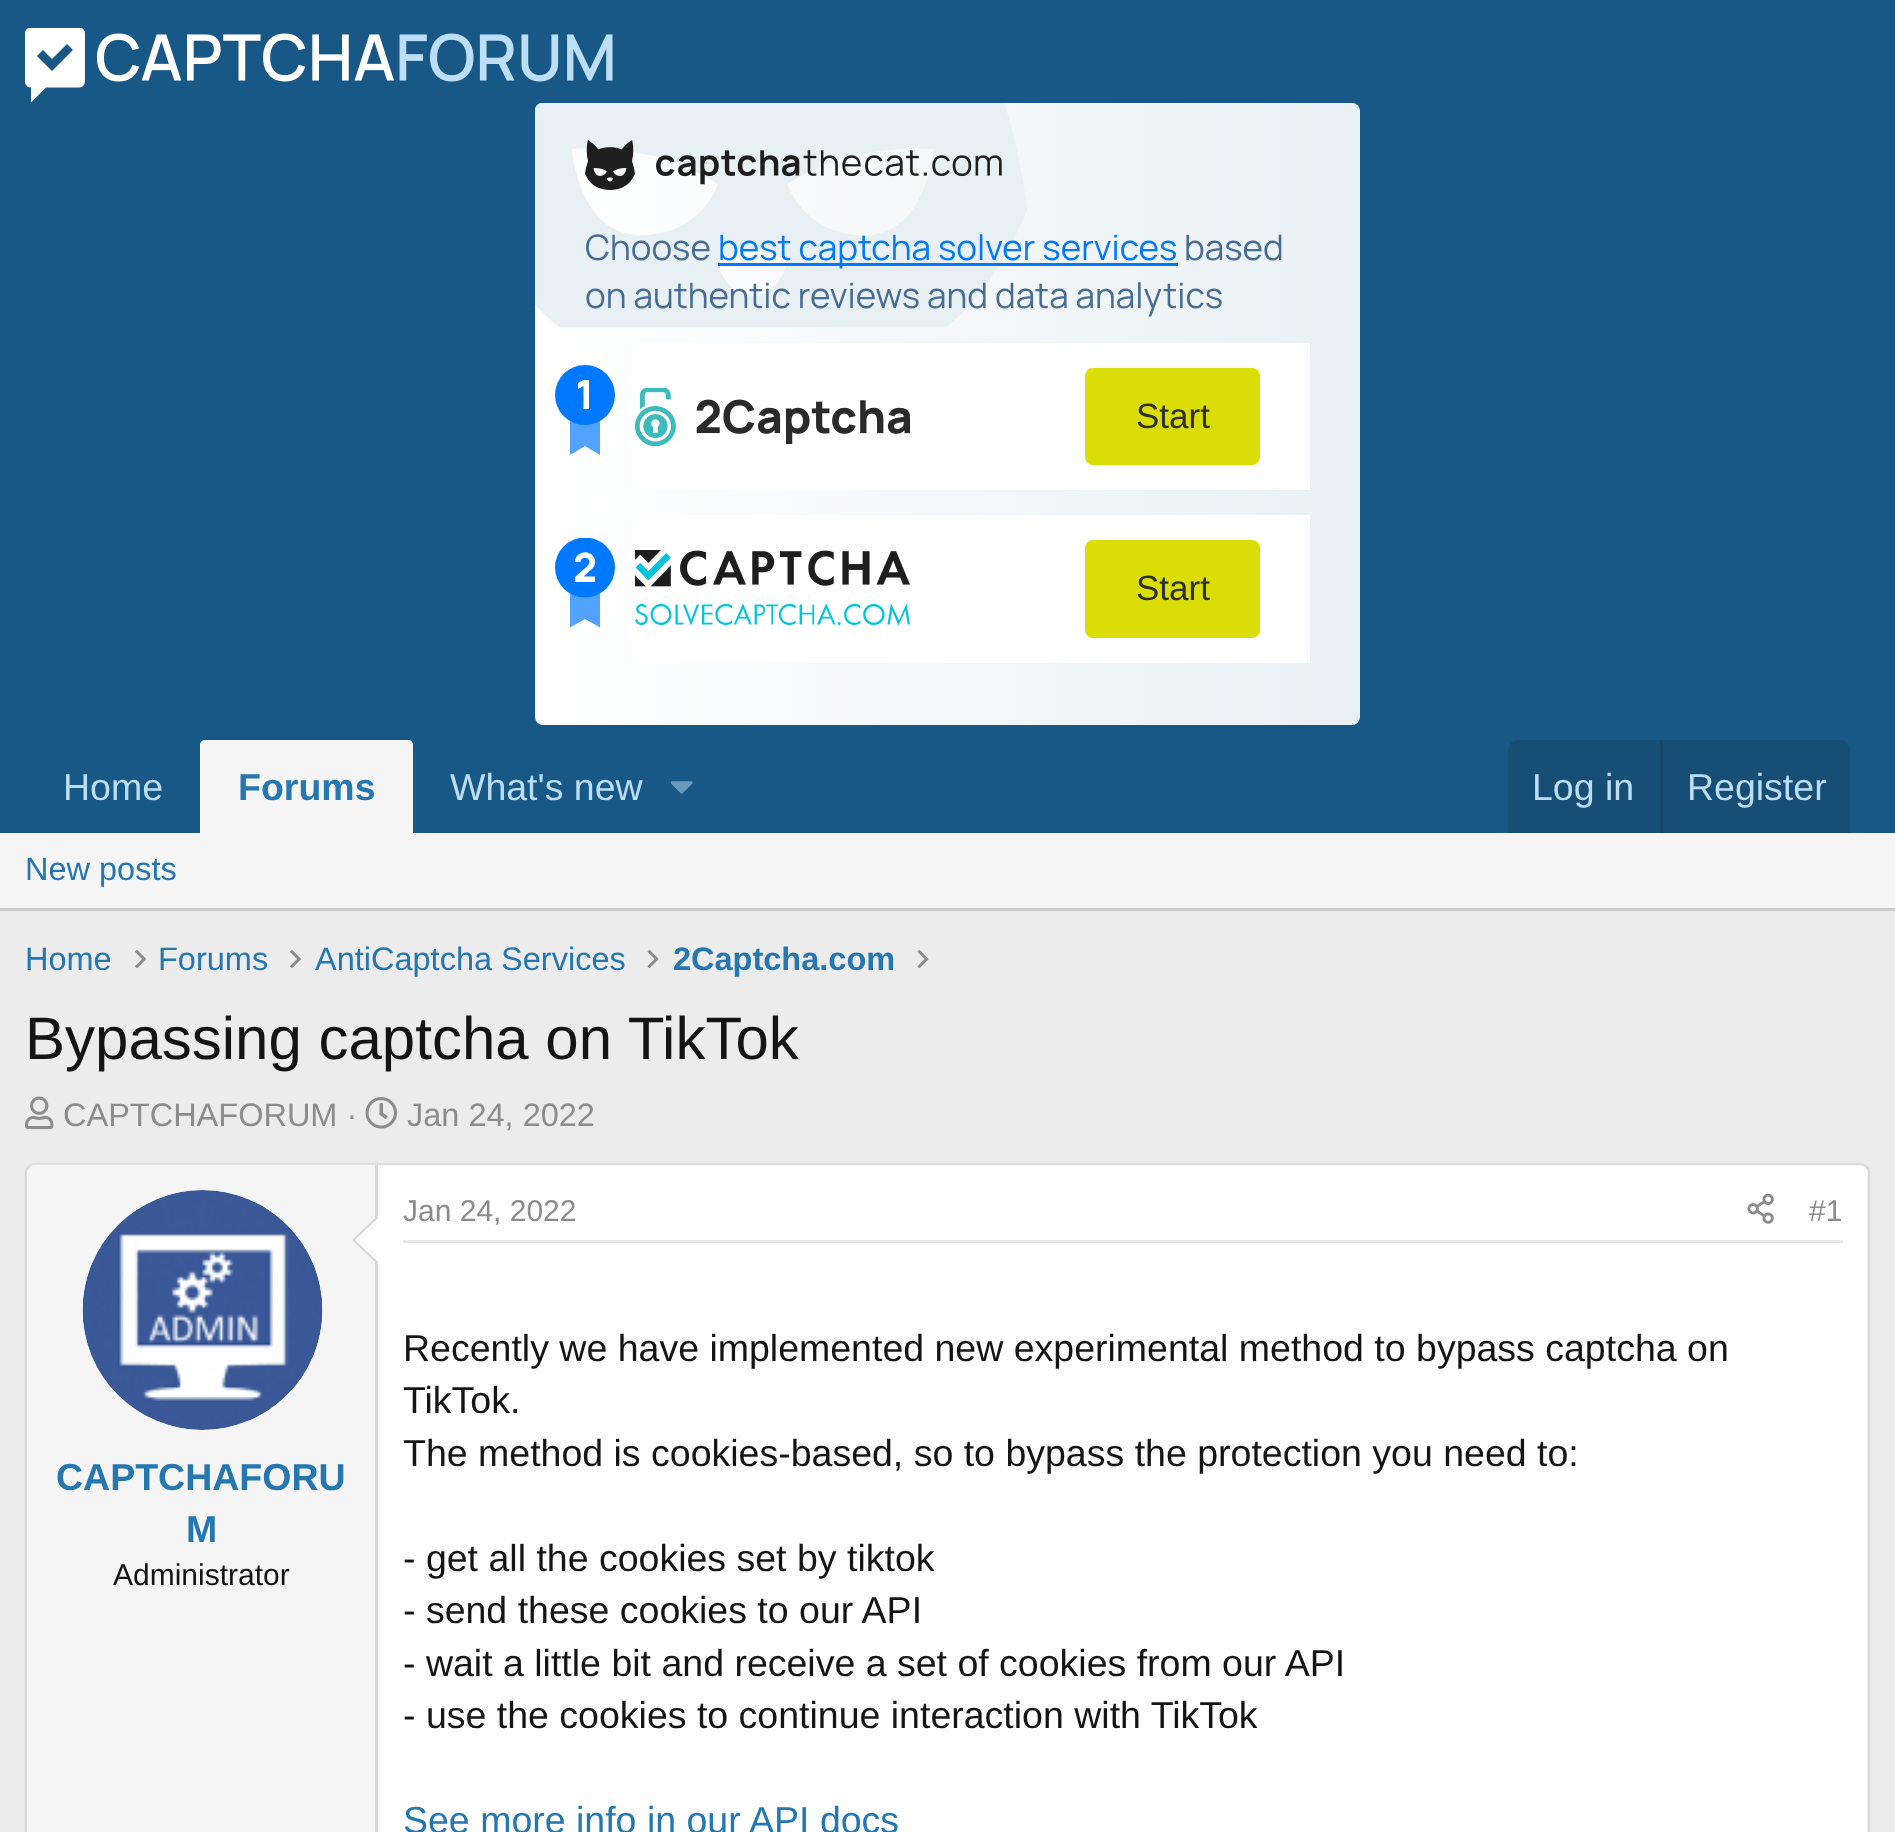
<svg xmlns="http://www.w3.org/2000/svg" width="1895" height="1832">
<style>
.a{font:35px Manrope;fill:#476d95}
.b{font:35px Manrope;fill:#0078ff}
.c{font:35px Liberation Sans;fill:#2f2f2f}
.d{font:37.5px Liberation Sans;fill:#bcdef5}
.e{font:bold 37.5px Liberation Sans;fill:#2577b1}
.f{font:32.5px Liberation Sans;fill:#2577b1}
.g{font:bold 32.5px Liberation Sans;fill:#2577b1}
.h{font:60px Liberation Sans;fill:#141414}
.i{font:32.5px Liberation Sans;fill:#8c8c8c}
.j{font:30px Liberation Sans;fill:#141414}
.k{font:30px Liberation Sans;fill:#8c8c8c}
.l{font:37.5px Liberation Sans;fill:#141414}
.m{font:37.5px Liberation Sans;fill:#2577b1}
</style>
<defs>
<linearGradient id="g1" gradientUnits="userSpaceOnUse" x1="535" y1="414" x2="1360" y2="414"><stop offset="0" stop-color="#fff"/><stop offset="1" stop-color="#e9f0f3"/></linearGradient>
<clipPath id="clip1"><path d="M555 538h60v90H555z"/></clipPath>
</defs>
<rect width="100%" height="100%" fill="#ececec"/>
<path fill="#185886" d="M0 0h1895v833H0z"/>
<image href="1.png" x="25" y="28" width="588" height="75"/>
<rect fill="url(#g1)" x="535" y="103" width="825" height="622" rx="8"/>
<image href="2.png" x="535" y="103" width="492" height="225"/>
<image href="3.png" x="585" y="140" width="417" height="50"/>
<path fill="#0078ff" d="M718 263h460v3H718z"/>
<path fill="#fff" d="M629 343h681v147H629z"/>
<path fill="#51a3ff" d="M570 455v-39h30v39l-15-9z"/>
<circle fill="#0078ff" cx="585" cy="395" r="30"/>
<path fill="#fff" d="M583.5 409v-23l-5.5 3v-6l5.5-3h5.5v29z"/>
<image href="4.png" x="635" y="388" width="275" height="59"/>
<rect fill="#dadd06" x="1085" y="368" width="175" height="97" rx="8"/>
<path fill="#fff" d="M629 515h681v148H629z"/>
<path fill="#51a3ff" d="M570 627.5v-38.5h30v38.5l-15-8.5z"/>
<g clip-path="url(#clip1)">
<circle fill="#0078ff" cx="585" cy="567.5" r="30"/>
</g>
<path fill="#fff" d="M575 582v-5l8-7c2.5-2.5 8-5.5 6-10c-2-4-8.5-2.5-8.5 2h-5.5c0-9.5 12.5-13 18-6c1.5 1.5 2 3.5 2 5.5c.5 5-3 7.5-6.5 10.5l-6.5 6l-.5-1.5h13.5v5.5z"/>
<image href="5.png" x="635" y="550" width="275" height="76"/>
<rect fill="#dadd06" x="1085" y="540" width="175" height="98" rx="8"/>
<path fill="#f5f5f5" d="M205 740h203c3 0 5 2 5 5v88h-213v-88c0-3 2-5 5-5z"/>
<image href="6.png" x="670" y="781" width="23" height="13"/>
<path fill="#174e75" d="M1518 740h322c5.5 0 10 4.5 10 10v83h-342v-83c0-5.5 4.5-10 10-10z"/>
<path fill="#174566" d="M1660 740h3v93H1660z"/>
<path fill="#f5f5f5" d="M0 833h1895v75H0z"/>
<path fill="#cbcbcb" d="M0 908h1895v3H0z"/>
<image href="7.png" x="135" y="950" width="11" height="19"/>
<image href="7.png" x="290" y="950" width="11" height="19"/>
<image href="8.png" x="647" y="950" width="12" height="19"/>
<image href="8.png" x="917" y="950" width="12" height="19"/>
<image href="9.png" x="25" y="1096" width="29" height="34"/>
<image href="10.png" x="365" y="1097" width="32" height="32"/>
<rect fill="#fefefe" x="25" y="1163" width="1845" height="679" rx="10"/>
<path fill="none" stroke="#dfdfdf" stroke-width="2.5" d="M29 1166.5c1.5-2 3.5-2.5 6-2.5h1825c2.5 0 4.5 .5 6 2.5"/>
<path fill="none" stroke="#d8d8d8" stroke-width="2.5" d="M1866 1166.5c2 1.5 3 3.5 3 6v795c0 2.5-1 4.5-3 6"/>
<path fill="none" stroke="#d8d8d8" stroke-width="2.5" d="M29 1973.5c-2-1.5-3-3.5-3-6v-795c0-2.5 1-4.5 3-6"/>
<path fill="#f5f5f5" d="M36 1165h342v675h-342c-4.5 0-8-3.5-8-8v-659c0-4.5 3.5-8 8-8z"/>
<path fill="#d8d8d8" d="M375 1165h3v667H375z"/>
<circle fill="#fefefe" cx="203" cy="1310" r="120"/>
<image href="11.png" x="82" y="1190" width="241" height="240"/>
<path fill="#d8d8d8" d="M378 1215v50l-26-25z"/>
<path fill="#fefefe" d="M378 1218v44l-23-22z"/>
<path fill="#e7e7e7" d="M403 1240h1440v3H403z"/>
<image href="12.png" x="1747" y="1193" width="27" height="31"/>
<text class="a" x="585" y="260">Choose</text>
<text class="b" x="718" y="260">best captcha solver services</text>
<text class="a" x="1184" y="260">based</text>
<text class="a" x="585" y="308">on authentic reviews and data analytics</text>
<text class="c" x="1136" y="428">Start</text>
<text class="c" x="1136" y="600">Start</text>
<text class="d" x="63" y="800">Home</text>
<text class="e" x="238" y="800">Forums</text>
<text class="d" x="450" y="800">What's new</text>
<text class="d" x="1532" y="800">Log in</text>
<text class="d" x="1687" y="800">Register</text>
<text class="f" x="25" y="880">New posts</text>
<text class="f" x="25" y="970">Home</text>
<text class="f" x="158" y="970">Forums</text>
<text class="f" x="315" y="970">AntiCaptcha Services</text>
<text class="g" x="673" y="970">2Captcha.com</text>
<text class="h" x="25" y="1059">Bypassing captcha on TikTok</text>
<text class="i" x="63" y="1126">CAPTCHAFORUM ·</text>
<text class="i" x="407" y="1126">Jan 24, 2022</text>
<text class="e" x="56" y="1490">CAPTCHAFORU</text>
<text class="e" x="186" y="1542">M</text>
<text class="j" x="113" y="1585">Administrator</text>
<text class="k" x="403" y="1221">Jan 24, 2022</text>
<text class="k" x="1809" y="1221">#1</text>
<text class="l" x="403" y="1361">Recently we have implemented new experimental method to bypass captcha on</text>
<text class="l" x="403" y="1413">TikTok.</text>
<text class="l" x="403" y="1466">The method is cookies-based, so to bypass the protection you need to:</text>
<text class="l" x="403" y="1571">- get all the cookies set by tiktok</text>
<text class="l" x="403" y="1623">- send these cookies to our API</text>
<text class="l" x="403" y="1676">- wait a little bit and receive a set of cookies from our API</text>
<text class="l" x="403" y="1728">- use the cookies to continue interaction with TikTok</text>
<text class="m" x="403" y="1833">See more info in our API docs</text>
</svg>
